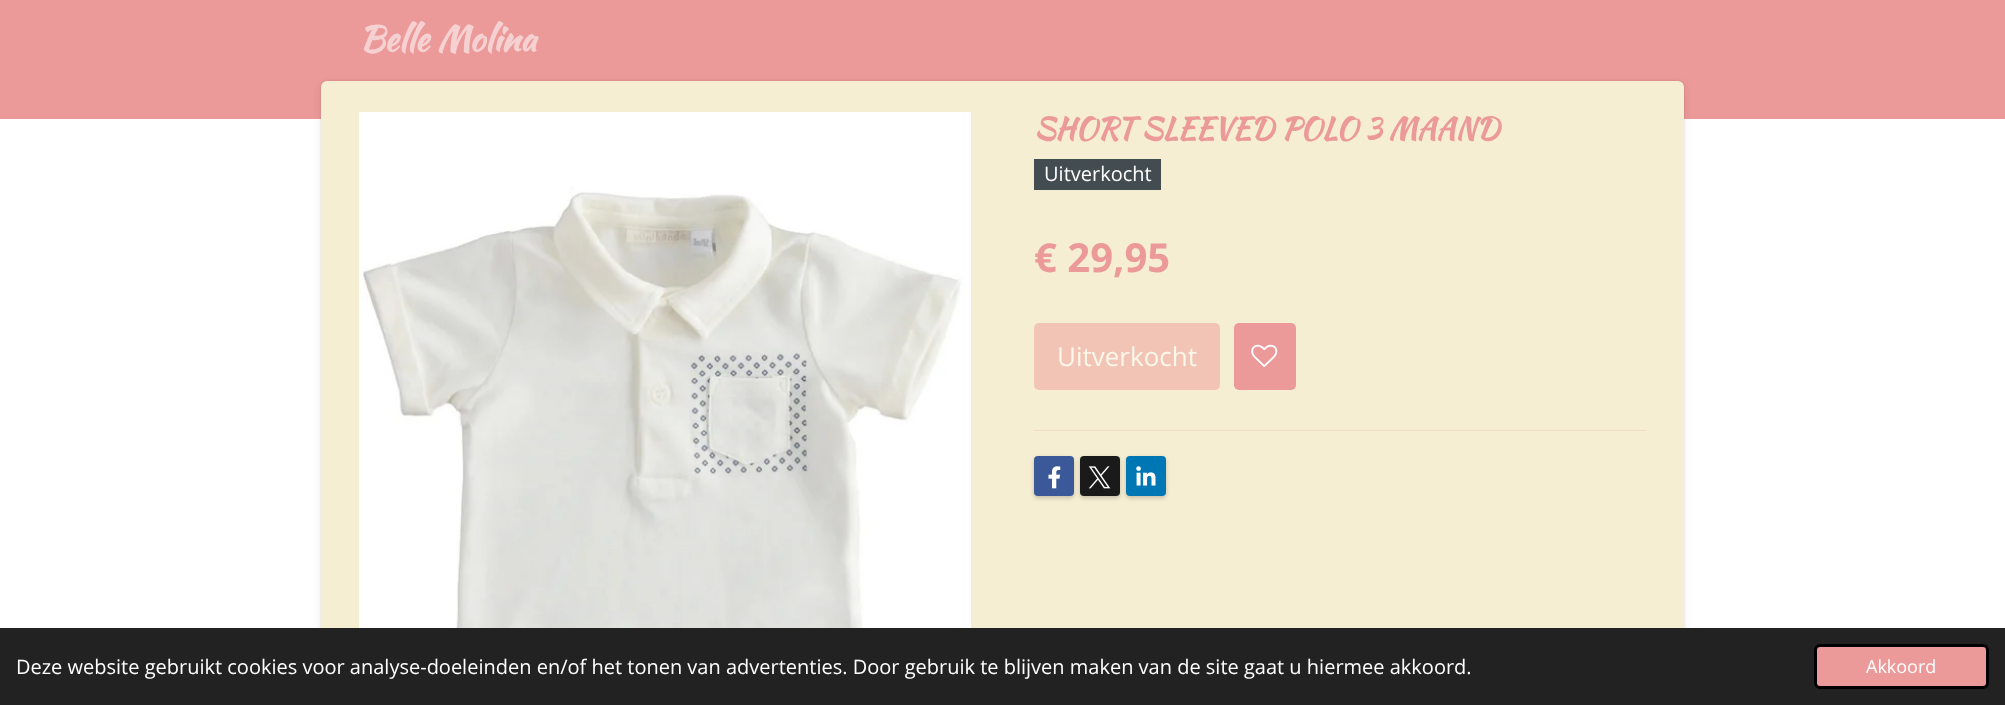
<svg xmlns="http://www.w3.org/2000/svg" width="2005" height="705">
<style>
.a{font:bold 35px Kaushan Script;fill:#f6d1d1}
.b{font:bold 30px Kaushan Script;fill:#eb9999}
.c{font:20px Open Sans;fill:#fff}
.d{font:bold 40px Open Sans;fill:#eb9999}
.e{font:26px Open Sans;fill:#fbf7e9}
.f{font:18px Open Sans;fill:#fff}
</style>
<rect width="100%" height="100%" fill="#fff"/>
<path fill="#eb9999" d="M0 0h2005v119H0z"/>
<rect fill="#0000001a" filter="blur(1px)" x="321" y="81" width="1363" height="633" rx="6"/>
<rect fill="#00000012" filter="blur(5px)" x="321" y="84" width="1363" height="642" rx="6"/>
<rect fill="#f6eed2" x="321" y="81" width="1363" height="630" rx="6"/>
<image href="1.png" x="359" y="112" width="612" height="516"/>
<path fill="#424c51" d="M1034 159h127v31H1034z"/>
<rect fill="#f1c4b6" x="1034" y="323" width="186" height="67" rx="5"/>
<rect fill="#eb9999" x="1234" y="323" width="62" height="67" rx="5"/>
<image href="2.png" x="1251" y="344" width="27" height="23"/>
<path fill="#f4ddc7" d="M1034 430h612v1H1034z"/>
<rect fill="#00000033" filter="blur(2px)" x="1034" y="458" width="40" height="40" rx="4"/>
<rect fill="#3b5998" x="1034" y="456" width="40" height="40" rx="4"/>
<image href="3.png" x="1048" y="466" width="13" height="23"/>
<rect fill="#00000033" filter="blur(2px)" x="1080" y="458" width="40" height="40" rx="4"/>
<rect fill="#1a1a1a" x="1080" y="456" width="40" height="40" rx="4"/>
<image href="4.png" x="1088" y="466" width="23" height="23"/>
<rect fill="#00000033" filter="blur(2px)" x="1126" y="458" width="40" height="40" rx="4"/>
<rect fill="#0077b5" x="1126" y="456" width="40" height="40" rx="4"/>
<image href="5.png" x="1136" y="466" width="20" height="20"/>
<path fill="#222" d="M0 628h2005v77H0z"/>
<rect fill="#eb9999" stroke="#000" stroke-width="3" x="1815.5" y="645.5" width="172" height="42" rx="4.5"/>
<text class="a" x="359" y="51">Belle Molina</text>
<text class="b" x="1034" y="139">SHORT SLEEVED POLO 3 MAAND</text>
<text class="c" x="1044" y="181">Uitverkocht</text>
<text class="d" x="1034" y="272">€ 29,95</text>
<text class="e" x="1057" y="366">Uitverkocht</text>
<text class="c" x="16" y="674">Deze website gebruikt cookies voor analyse-doeleinden en/of het tonen van advertenties. Door gebruik te blijven maken van de site gaat u hiermee akkoord.</text>
<text class="f" x="1866" y="673">Akkoord</text>
</svg>
